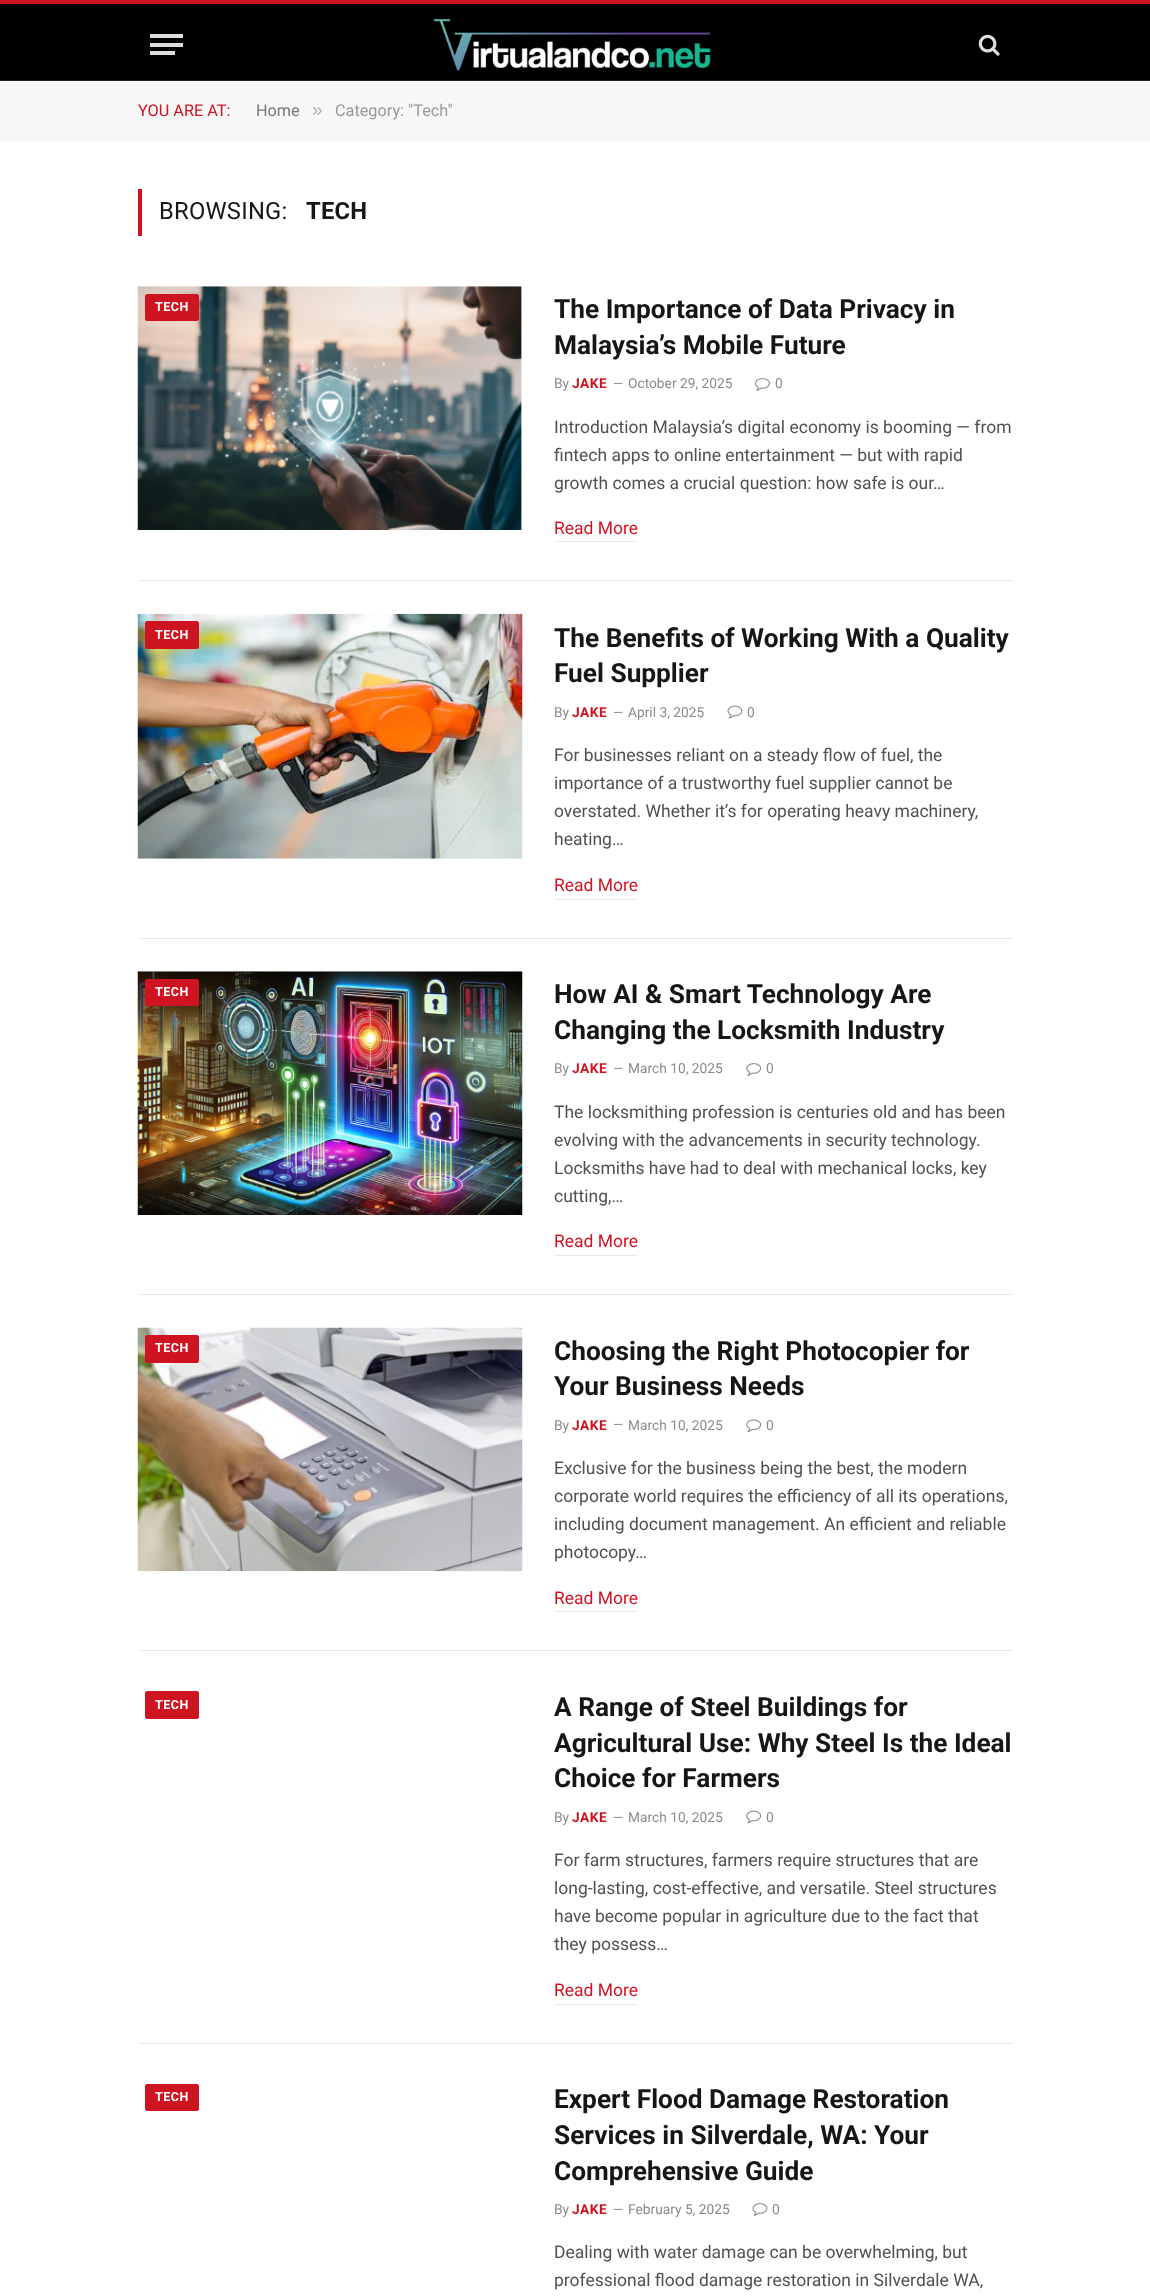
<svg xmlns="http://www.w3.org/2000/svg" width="1150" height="2296">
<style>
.a{font:16.25px Roboto;fill:#ce1421}
.b{font:16.25px Roboto;fill:#777}
.c{font:19px Liberation Sans;fill:#acacac}
.d{font:16.25px Roboto;fill:#999}
.e{font:23.75px Roboto;letter-spacing:0.25px;fill:#161616}
.f{font:bold 23.75px Roboto;letter-spacing:0.25px;fill:#161616}
.g{font:bold 12.5px Roboto;letter-spacing:0.5px;fill:#fff}
.h{font:bold 26.25px Roboto;fill:#161616}
.i{font:13.75px Roboto;fill:#8a8a8a}
.j{font:bold 13.75px Roboto;letter-spacing:0.5px;fill:#ce1421}
.k{font:13px Roboto;fill:#8a8a8a}
.l{font:17.5px Roboto;fill:#505050}
.m{font:17.5px Roboto;fill:#ce1421}
</style>
<rect width="100%" height="100%" fill="#fff"/>
<path fill="#000" d="M0 4h1150v76H0z"/>
<path fill="#ce1421" d="M0 0h1150v4H0z"/>
<path fill="#222" d="M0 80h1150v1H0z"/>
<path fill="#ddd" d="M150 51h25v4H150z"/>
<path fill="#ddd" d="M150 34h33v4H150z"/>
<path fill="#ddd" d="M150 43h33v4H150z"/>
<image href="1.png" x="434" y="19" width="277" height="52"/>
<image href="2.png" x="978" y="34" width="22" height="22"/>
<path fill="#f7f7f7" d="M0 81h1150v60H0z"/>
<path fill="#ce1421" d="M138 189h4v47H138z"/>
<image href="3.png" x="137" y="286" width="385" height="244"/>
<rect fill="#ce1421" x="145" y="294" width="54" height="27" rx="2.5"/>
<image href="4.png" x="755" y="378" width="15" height="13"/>
<path fill="#e8e8e8" d="M554 541h84v1H554z"/>
<path fill="#e8e8e8" d="M138 580h875v1H138z"/>
<image href="5.png" x="137" y="613" width="386" height="246"/>
<rect fill="#ce1421" x="145" y="621" width="54" height="28" rx="2.5"/>
<image href="6.png" x="727" y="705" width="16" height="14"/>
<path fill="#e8e8e8" d="M554 899h84v1H554z"/>
<path fill="#e8e8e8" d="M138 938h875v1H138z"/>
<image href="7.png" x="137" y="971" width="386" height="244"/>
<rect fill="#ce1421" x="145" y="979" width="54" height="27" rx="2.5"/>
<image href="8.png" x="746" y="1063" width="16" height="13"/>
<path fill="#e8e8e8" d="M554 1255h84v1H554z"/>
<path fill="#e8e8e8" d="M138 1294h875v1H138z"/>
<image href="9.png" x="137" y="1327" width="386" height="245"/>
<rect fill="#ce1421" x="145" y="1335" width="54" height="28" rx="2.5"/>
<image href="10.png" x="746" y="1419" width="16" height="14"/>
<path fill="#e8e8e8" d="M554 1611h84v1H554z"/>
<path fill="#e8e8e8" d="M138 1650h875v1H138z"/>
<rect fill="#ce1421" x="145" y="1691" width="54" height="28" rx="2.5"/>
<image href="11.png" x="746" y="1810" width="16" height="14"/>
<path fill="#e8e8e8" d="M554 2004h84v1H554z"/>
<path fill="#e8e8e8" d="M138 2043h875v1H138z"/>
<rect fill="#ce1421" x="145" y="2084" width="54" height="27" rx="2.5"/>
<image href="12.png" x="752" y="2203" width="16" height="13"/>
<text class="a" x="138" y="116">YOU ARE AT:</text>
<text class="b" x="256" y="116">Home</text>
<text class="c" x="312" y="116">»</text>
<text class="d" x="335" y="116">Category: "Tech"</text>
<text class="e" x="159" y="219">BROWSING:</text>
<text class="f" x="306" y="219">TECH</text>
<text class="g" x="155" y="311">TECH</text>
<text class="h" x="554" y="318">The Importance of Data Privacy in</text>
<text class="h" x="554" y="354">Malaysia’s Mobile Future</text>
<text class="i" x="554" y="388">By</text>
<text class="j" x="572" y="388">JAKE</text>
<text class="k" x="613" y="388">—</text>
<text class="i" x="628" y="388">October 29, 2025</text>
<text class="i" x="775" y="388">0</text>
<text class="l" x="554" y="433">Introduction Malaysia’s digital economy is booming — from</text>
<text class="l" x="554" y="461">fintech apps to online entertainment — but with rapid</text>
<text class="l" x="554" y="489">growth comes a crucial question: how safe is our…</text>
<text class="m" x="554" y="534">Read More</text>
<text class="g" x="155" y="639">TECH</text>
<text class="h" x="554" y="647">The Benefits of Working With a Quality</text>
<text class="h" x="554" y="682">Fuel Supplier</text>
<text class="i" x="554" y="717">By</text>
<text class="j" x="572" y="717">JAKE</text>
<text class="k" x="613" y="717">—</text>
<text class="i" x="628" y="717">April 3, 2025</text>
<text class="i" x="747" y="717">0</text>
<text class="l" x="554" y="761">For businesses reliant on a steady flow of fuel, the</text>
<text class="l" x="554" y="789">importance of a trustworthy fuel supplier cannot be</text>
<text class="l" x="554" y="817">overstated. Whether it’s for operating heavy machinery,</text>
<text class="l" x="554" y="845">heating…</text>
<text class="m" x="554" y="891">Read More</text>
<text class="g" x="155" y="996">TECH</text>
<text class="h" x="554" y="1003">How AI &amp; Smart Technology Are</text>
<text class="h" x="554" y="1039">Changing the Locksmith Industry</text>
<text class="i" x="554" y="1073">By</text>
<text class="j" x="572" y="1073">JAKE</text>
<text class="k" x="613" y="1073">—</text>
<text class="i" x="628" y="1073">March 10, 2025</text>
<text class="i" x="766" y="1073">0</text>
<text class="l" x="554" y="1118">The locksmithing profession is centuries old and has been</text>
<text class="l" x="554" y="1146">evolving with the advancements in security technology.</text>
<text class="l" x="554" y="1174">Locksmiths have had to deal with mechanical locks, key</text>
<text class="l" x="554" y="1202">cutting,…</text>
<text class="m" x="554" y="1247">Read More</text>
<text class="g" x="155" y="1352">TECH</text>
<text class="h" x="554" y="1360">Choosing the Right Photocopier for</text>
<text class="h" x="554" y="1395">Your Business Needs</text>
<text class="i" x="554" y="1430">By</text>
<text class="j" x="572" y="1430">JAKE</text>
<text class="k" x="613" y="1429">—</text>
<text class="i" x="628" y="1430">March 10, 2025</text>
<text class="i" x="766" y="1430">0</text>
<text class="l" x="554" y="1474">Exclusive for the business being the best, the modern</text>
<text class="l" x="554" y="1502">corporate world requires the efficiency of all its operations,</text>
<text class="l" x="554" y="1530">including document management. An efficient and reliable</text>
<text class="l" x="554" y="1558">photocopy…</text>
<text class="m" x="554" y="1604">Read More</text>
<text class="g" x="155" y="1709">TECH</text>
<text class="h" x="554" y="1716">A Range of Steel Buildings for</text>
<text class="h" x="554" y="1752">Agricultural Use: Why Steel Is the Ideal</text>
<text class="h" x="554" y="1787">Choice for Farmers</text>
<text class="i" x="554" y="1822">By</text>
<text class="j" x="572" y="1822">JAKE</text>
<text class="k" x="613" y="1822">—</text>
<text class="i" x="628" y="1822">March 10, 2025</text>
<text class="i" x="766" y="1822">0</text>
<text class="l" x="554" y="1866">For farm structures, farmers require structures that are</text>
<text class="l" x="554" y="1894">long-lasting, cost-effective, and versatile. Steel structures</text>
<text class="l" x="554" y="1922">have become popular in agriculture due to the fact that</text>
<text class="l" x="554" y="1950">they possess…</text>
<text class="m" x="554" y="1996">Read More</text>
<text class="g" x="155" y="2101">TECH</text>
<text class="h" x="554" y="2108">Expert Flood Damage Restoration</text>
<text class="h" x="554" y="2144">Services in Silverdale, WA: Your</text>
<text class="h" x="554" y="2180">Comprehensive Guide</text>
<text class="i" x="554" y="2214">By</text>
<text class="j" x="572" y="2214">JAKE</text>
<text class="k" x="613" y="2214">—</text>
<text class="i" x="628" y="2214">February 5, 2025</text>
<text class="i" x="772" y="2214">0</text>
<text class="l" x="554" y="2258">Dealing with water damage can be overwhelming, but</text>
<text class="l" x="554" y="2286">professional flood damage restoration in Silverdale WA,</text>
</svg>
